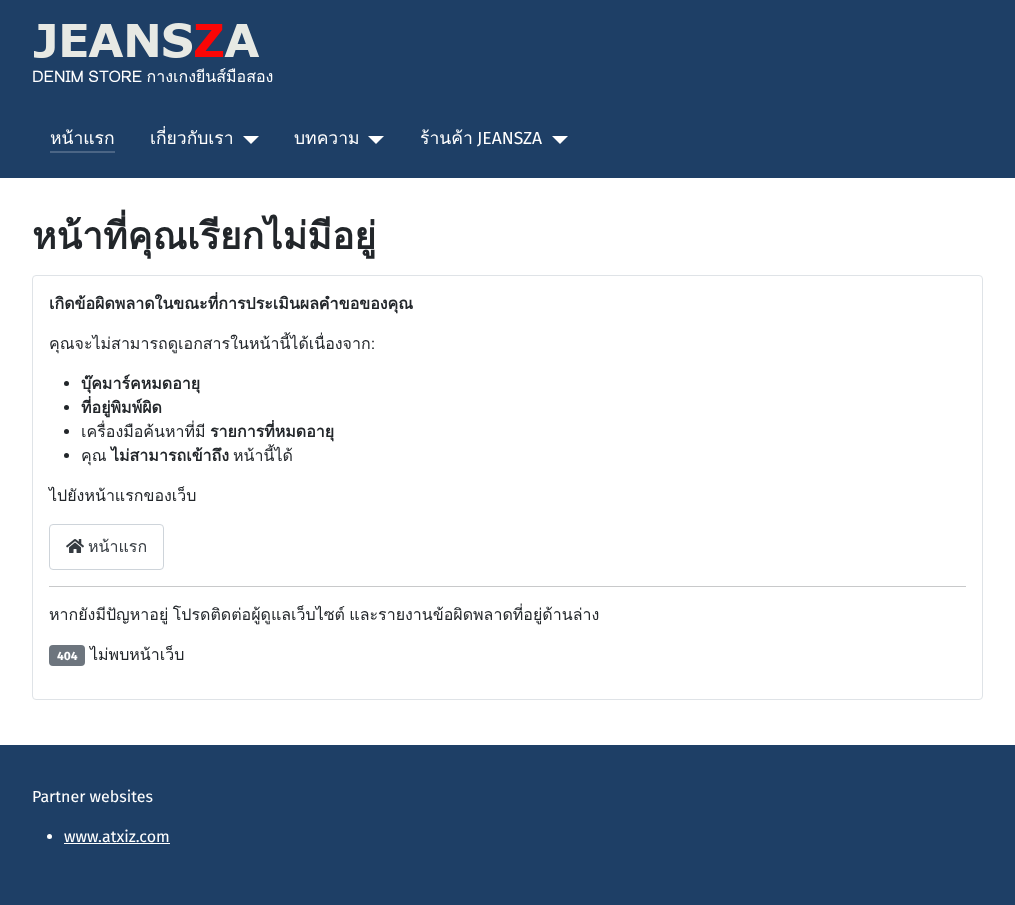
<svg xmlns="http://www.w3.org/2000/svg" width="1015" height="905">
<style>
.a{font:16px Loma;fill:#fff}
.b{font:17.5px Loma;fill:#fff}
.c{font:17.5px Fira Sans;fill:#fff}
.d{font:bold 37.25px Loma;fill:#22262a}
.e{font:bold 16px Loma;fill:#22262a}
.f{font:16px Loma;fill:#22262a}
.g{font:16px Loma;fill:#353b41}
.h{font:bold 12px Fira Sans;fill:#fff}
.i{font:16px Fira Sans;fill:#fff}
</style>
<defs>
<clipPath id="clip1"><path d="M150 126h84v27H150z"/></clipPath>
<clipPath id="clip2"><path d="M420 126h123v27H420z"/></clipPath>
</defs>
<rect width="100%" height="100%" fill="#fff"/>
<path fill="#1e3f66" d="M0 0h1015v178H0z"/>
<image href="1.png" x="34" y="23" width="226" height="35"/>
<path fill="#4b6585" d="M50 151h65v2H50z"/>
<path fill="#fff" d="M243 136h16l-8 8z"/>
<path fill="#fff" d="M368 136h16l-8 8z"/>
<path fill="#fff" d="M552 136h16l-8 8z"/>
<rect fill="none" stroke="#dfe3e7" x="32.5" y="275.5" width="950" height="424" rx="3.5"/>
<circle fill="#22262a" cx="66.5" cy="383.5" r="2.5"/>
<circle fill="#22262a" cx="66.5" cy="407.5" r="2.5"/>
<circle fill="#22262a" cx="66.5" cy="431.5" r="2.5"/>
<circle fill="#22262a" cx="66.5" cy="455.5" r="2.5"/>
<rect fill="none" stroke="#ced4da" x="49.5" y="524.5" width="114" height="45" rx="3.5"/>
<image href="2.png" x="66" y="539" width="18" height="14"/>
<path fill="#c8c9ca" d="M49 586h917v1H49z"/>
<rect fill="#6d757e" x="49" y="645" width="36" height="21" rx="4"/>
<path fill="#1e3f66" d="M0 745h1015v160H0z"/>
<circle fill="#fff" cx="49.5" cy="836.5" r="2.5"/>
<path fill="#fff" d="M64 843h106v1H64z"/>
<text class="a" x="32" y="82" word-spacing="-1">DENIM STORE กางเกงยีนส์มือสอง</text>
<text class="b" x="50" y="144">หน้าแรก</text>
<g clip-path="url(#clip1)">
<text class="b" x="150" y="144">เกี่ยวกับเรา</text>
</g>
<text class="b" x="294" y="144">บทความ</text>
<g clip-path="url(#clip2)">
<text class="b" x="420" y="144">ร้านค้า</text>
</g>
<text class="c" x="477" y="144">JEANSZA</text>
<text class="d" x="32" y="249">หน้าที่คุณเรียกไม่มีอยู่</text>
<text class="e" x="49" y="309">เกิดข้อผิดพลาดในขณะที่การประเมินผลคำขอของคุณ</text>
<text class="f" x="49" y="349">คุณจะไม่สามารถดูเอกสารในหน้านี้ได้เนื่องจาก:</text>
<text class="e" x="81" y="389">บุ๊คมาร์คหมดอายุ</text>
<text class="e" x="81" y="413">ที่อยู่พิมพ์ผิด</text>
<text class="f" x="81" y="437">เครื่องมือค้นหาที่มี</text>
<text class="e" x="210" y="437">รายการที่หมดอายุ</text>
<text class="f" x="81" y="461">คุณ</text>
<text class="e" x="111" y="461">ไม่สามารถเข้าถึง</text>
<text class="f" x="233" y="461">หน้านี้ได้</text>
<text class="f" x="49" y="501">ไปยังหน้าแรกของเว็บ</text>
<text class="g" x="88" y="552">หน้าแรก</text>
<text class="f" x="49" y="620" word-spacing="-1">หากยังมีปัญหาอยู่ โปรดติดต่อผู้ดูแลเว็บไซต์ และรายงานข้อผิดพลาดที่อยู่ด้านล่าง</text>
<text class="h" x="57" y="660">404</text>
<text class="f" x="90" y="660">ไม่พบหน้าเว็บ</text>
<text class="i" x="32" y="802">Partner websites</text>
<text class="i" x="64" y="842">www.atxiz.com</text>
</svg>
